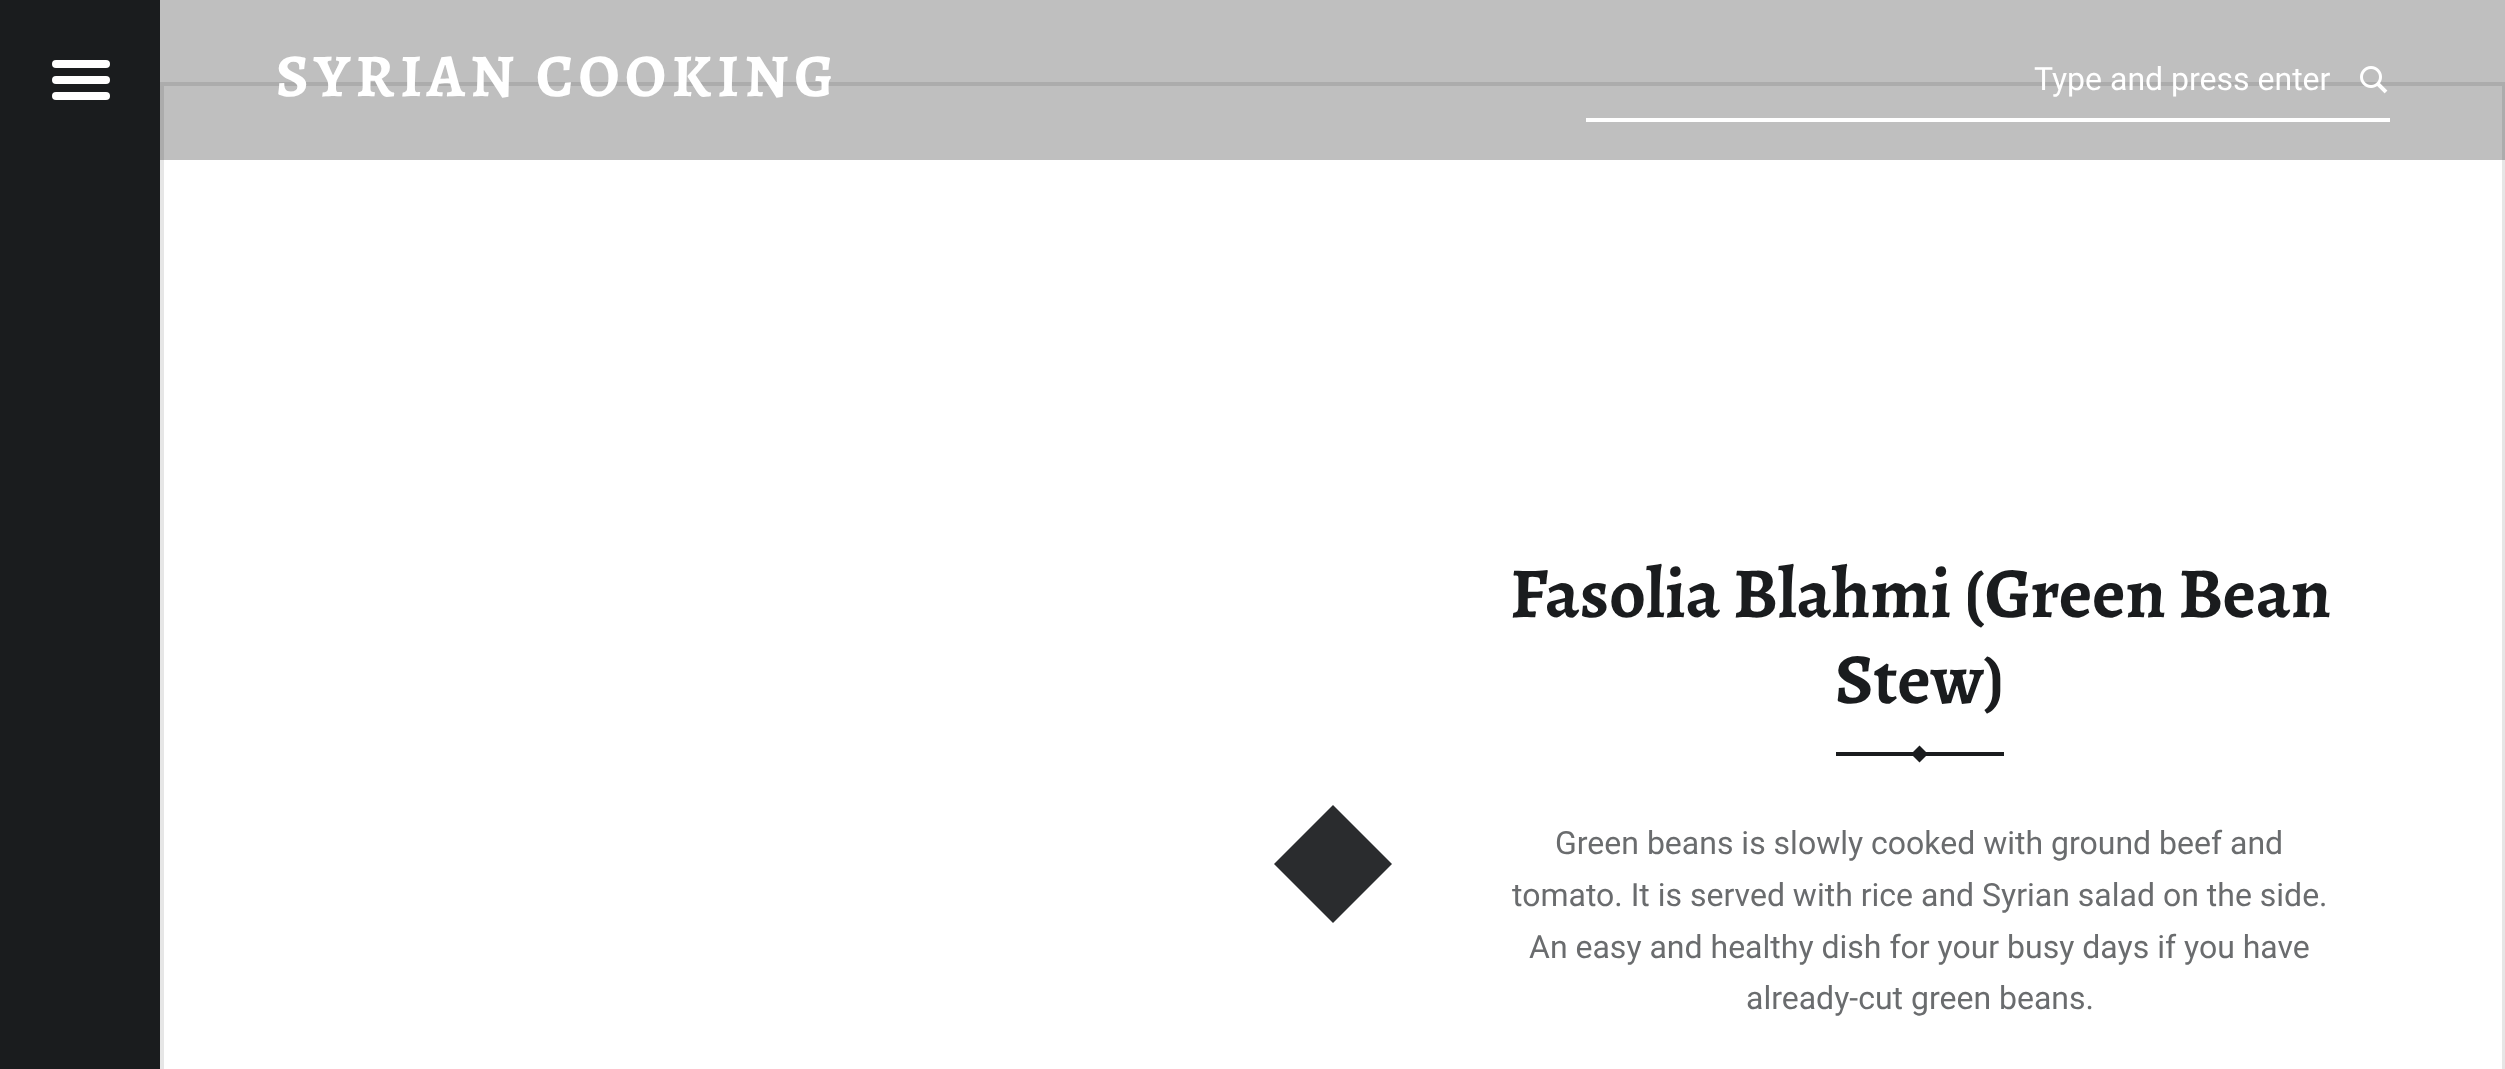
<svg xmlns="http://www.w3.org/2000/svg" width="2505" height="1069">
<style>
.a{font:bold 60.75px Alegreya;letter-spacing:5.5px;fill:#fff}
.b{font:32px Roboto;fill:#fff}
.c{font:bold 71.75px Alegreya;fill:#1a1c1e}
.d{font:32px Roboto;fill:#6a6c6e}
</style>
<rect width="100%" height="100%" fill="#fff"/>
<path fill="#1a1c1e" d="M0 0h160v1069H0z"/>
<rect fill="#fff" x="52" y="60" width="58" height="8" rx="4"/>
<rect fill="#fff" x="52" y="76" width="58" height="8" rx="4"/>
<rect fill="#fff" x="52" y="92" width="58" height="8" rx="4"/>
<path fill="#2a2c2e" d="M1333 805l59 59l-59 59l-59-59z"/>
<path fill="#1a1c1e" d="M1836 752h168v4H1836z"/>
<path fill="#1a1c1e" d="M1919.5 745.5l8.5 8.5l-8.5 8.5l-8.5-8.5z"/>
<path fill="none" stroke="#e6e6e6" stroke-width="4" d="M162 84h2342v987H162z"/>
<path fill="#00000040" d="M160 0h2345v160H160z"/>
<path fill="#fff" d="M1586 118h804v4H1586z"/>
<image href="1.png" x="2360" y="66" width="28" height="28"/>
<text class="a" x="276" y="96">SYRIAN COOKING</text>
<text class="b" x="2034" y="90">Type and press enter</text>
<text class="c" x="1510" y="617">Fasolia Blahmi (Green Bean</text>
<text class="c" x="1835" y="703">Stew)</text>
<text class="d" x="1555" y="854">Green beans is slowly cooked with ground beef and</text>
<text class="d" x="1512" y="906">tomato. It is served with rice and Syrian salad on the side.</text>
<text class="d" x="1529" y="958">An easy and healthy dish for your busy days if you have</text>
<text class="d" x="1746" y="1009">already-cut green beans.</text>
</svg>
